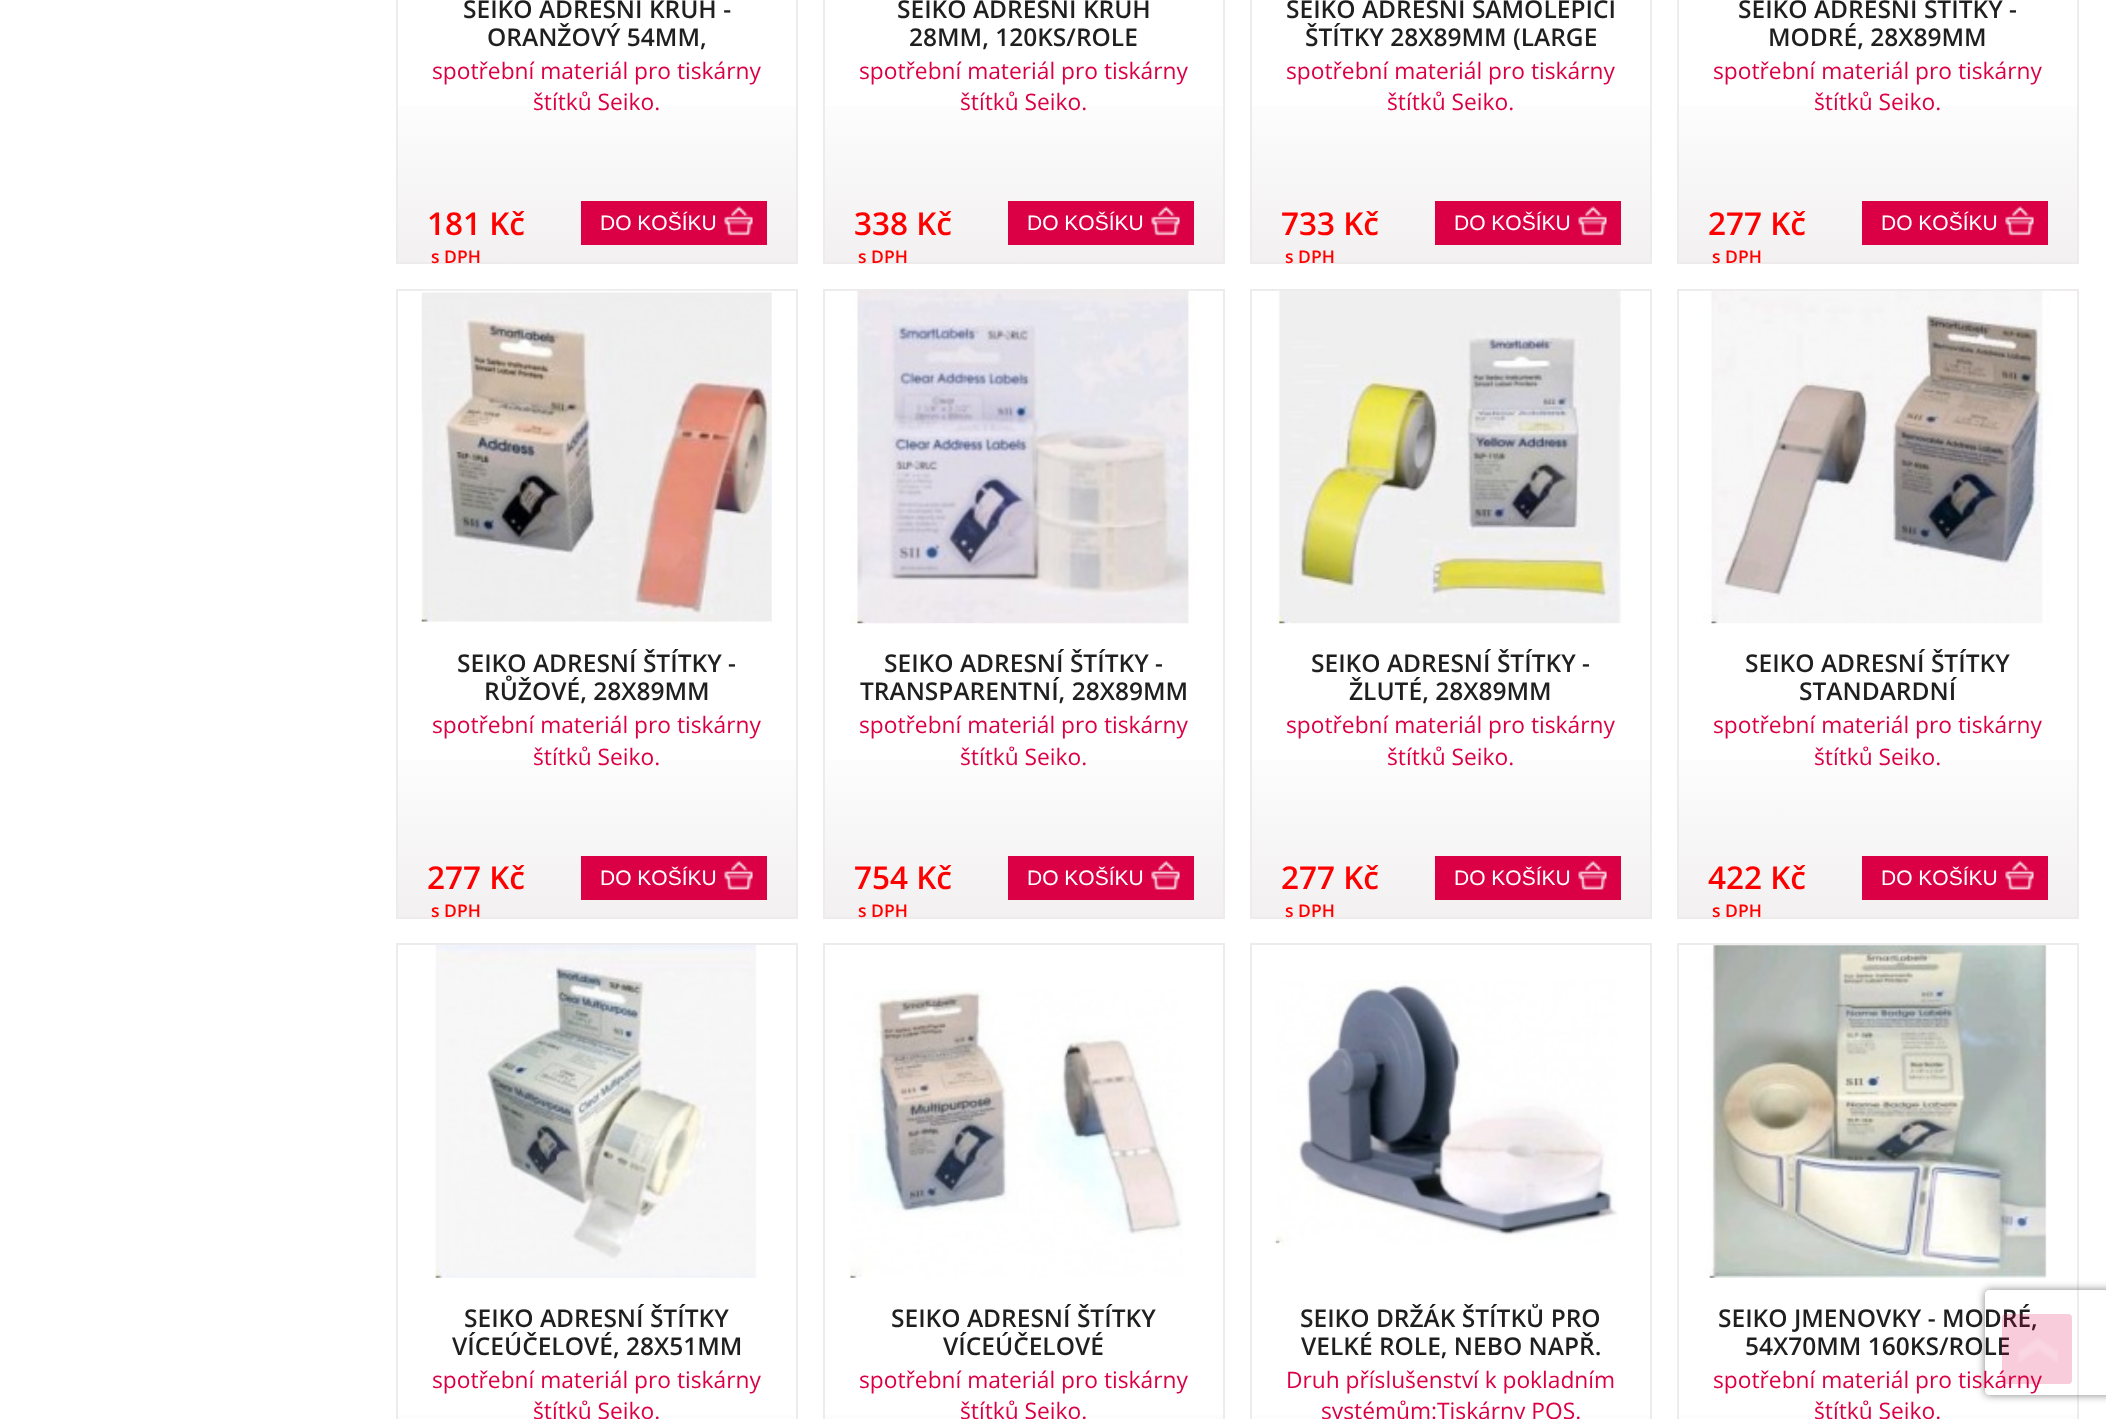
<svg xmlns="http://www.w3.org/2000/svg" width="2106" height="1419">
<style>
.a{font:600 24.5px Open Sans;fill:#1f1f1f}
.b{font:22.75px Open Sans;fill:#db0046}
.c{font:600 31.5px Open Sans;fill:#f00}
.d{font:600 17.5px Open Sans;fill:#f00}
.e{font:21px Liberation Sans;fill:#fff}
</style>
<defs>
<linearGradient id="g1" gradientUnits="userSpaceOnUse" x1="597" y1="-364" x2="597" y2="263"><stop offset="0.7" stop-color="#fff"/><stop offset="1" stop-color="#f2f0f0"/></linearGradient>
<linearGradient id="g2" gradientUnits="userSpaceOnUse" x1="1024" y1="-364" x2="1024" y2="263"><stop offset="0.7" stop-color="#fff"/><stop offset="1" stop-color="#f2f0f0"/></linearGradient>
<linearGradient id="g3" gradientUnits="userSpaceOnUse" x1="1451" y1="-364" x2="1451" y2="263"><stop offset="0.7" stop-color="#fff"/><stop offset="1" stop-color="#f2f0f0"/></linearGradient>
<linearGradient id="g4" gradientUnits="userSpaceOnUse" x1="1878" y1="-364" x2="1878" y2="263"><stop offset="0.7" stop-color="#fff"/><stop offset="1" stop-color="#f2f0f0"/></linearGradient>
<linearGradient id="g5" gradientUnits="userSpaceOnUse" x1="597" y1="291" x2="597" y2="917"><stop offset="0.7" stop-color="#fff"/><stop offset="1" stop-color="#f2f0f0"/></linearGradient>
<linearGradient id="g6" gradientUnits="userSpaceOnUse" x1="1024" y1="291" x2="1024" y2="917"><stop offset="0.7" stop-color="#fff"/><stop offset="1" stop-color="#f2f0f0"/></linearGradient>
<linearGradient id="g7" gradientUnits="userSpaceOnUse" x1="1451" y1="291" x2="1451" y2="917"><stop offset="0.7" stop-color="#fff"/><stop offset="1" stop-color="#f2f0f0"/></linearGradient>
<linearGradient id="g8" gradientUnits="userSpaceOnUse" x1="1878" y1="291" x2="1878" y2="917"><stop offset="0.7" stop-color="#fff"/><stop offset="1" stop-color="#f2f0f0"/></linearGradient>
<linearGradient id="g9" gradientUnits="userSpaceOnUse" x1="597" y1="945" x2="597" y2="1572"><stop offset="0.7" stop-color="#fff"/><stop offset="1" stop-color="#f2f0f0"/></linearGradient>
<linearGradient id="g10" gradientUnits="userSpaceOnUse" x1="1024" y1="945" x2="1024" y2="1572"><stop offset="0.7" stop-color="#fff"/><stop offset="1" stop-color="#f2f0f0"/></linearGradient>
<linearGradient id="g11" gradientUnits="userSpaceOnUse" x1="1451" y1="945" x2="1451" y2="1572"><stop offset="0.7" stop-color="#fff"/><stop offset="1" stop-color="#f2f0f0"/></linearGradient>
<linearGradient id="g12" gradientUnits="userSpaceOnUse" x1="1878" y1="945" x2="1878" y2="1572"><stop offset="0.7" stop-color="#fff"/><stop offset="1" stop-color="#f2f0f0"/></linearGradient>
<clipPath id="clip1"><path d="M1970 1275h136v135h-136zm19 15h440c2 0 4 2 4 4v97c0 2-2 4-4 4h-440c-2 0-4-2-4-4v-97c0-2 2-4 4-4z" clip-rule="evenodd"/></clipPath>
<clipPath id="clip2"><path d="M1281 1304h340v56H1281z"/></clipPath>
</defs>
<rect width="100%" height="100%" fill="#fff"/>
<path fill="url(#g1)" d="M398 106h398v156H398z"/>
<path fill="none" stroke="#edebeb" stroke-width="2" d="M397 -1h400v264H397z"/>
<path fill="#db0046" d="M581 201h186v44H581z"/>
<image href="1.png" x="724" y="206" width="29" height="30"/>
<path fill="url(#g2)" d="M825 106h398v156H825z"/>
<path fill="none" stroke="#edebeb" stroke-width="2" d="M824 -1h400v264H824z"/>
<path fill="#db0046" d="M1008 201h186v44H1008z"/>
<image href="1.png" x="1151" y="206" width="29" height="30"/>
<path fill="url(#g3)" d="M1252 106h398v156H1252z"/>
<path fill="none" stroke="#edebeb" stroke-width="2" d="M1251 -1h400v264H1251z"/>
<path fill="#db0046" d="M1435 201h186v44H1435z"/>
<image href="1.png" x="1578" y="206" width="29" height="30"/>
<path fill="url(#g4)" d="M1679 106h398v156H1679z"/>
<path fill="none" stroke="#edebeb" stroke-width="2" d="M1678 -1h400v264H1678z"/>
<path fill="#db0046" d="M1862 201h186v44H1862z"/>
<image href="1.png" x="2005" y="206" width="29" height="30"/>
<path fill="url(#g5)" d="M398 760h398v157H398z"/>
<path fill="none" stroke="#edebeb" stroke-width="2" d="M397 290h400v628H397z"/>
<image href="2.png" x="421" y="290" width="351" height="334"/>
<path fill="#db0046" d="M581 856h186v44H581z"/>
<image href="3.png" x="724" y="860" width="29" height="30"/>
<path fill="url(#g6)" d="M825 760h398v157H825z"/>
<path fill="none" stroke="#edebeb" stroke-width="2" d="M824 290h400v628H824z"/>
<image href="4.png" x="849" y="290" width="349" height="334"/>
<path fill="#db0046" d="M1008 856h186v44H1008z"/>
<image href="3.png" x="1151" y="860" width="29" height="30"/>
<path fill="url(#g7)" d="M1252 760h398v157H1252z"/>
<path fill="none" stroke="#edebeb" stroke-width="2" d="M1251 290h400v628H1251z"/>
<image href="5.png" x="1276" y="290" width="349" height="334"/>
<path fill="#db0046" d="M1435 856h186v44H1435z"/>
<image href="3.png" x="1578" y="860" width="29" height="30"/>
<path fill="url(#g8)" d="M1679 760h398v157H1679z"/>
<path fill="none" stroke="#edebeb" stroke-width="2" d="M1678 290h400v628H1678z"/>
<image href="6.png" x="1703" y="290" width="349" height="334"/>
<path fill="#db0046" d="M1862 856h186v44H1862z"/>
<image href="3.png" x="2005" y="860" width="29" height="30"/>
<path fill="url(#g9)" d="M398 1415h398v4H398z"/>
<path fill="none" stroke="#edebeb" stroke-width="2" d="M397 944h400v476H397z"/>
<image href="7.png" x="435" y="945" width="322" height="333"/>
<path fill="url(#g10)" d="M825 1415h398v4H825z"/>
<path fill="none" stroke="#edebeb" stroke-width="2" d="M824 944h400v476H824z"/>
<image href="8.png" x="849" y="989" width="334" height="289"/>
<path fill="url(#g11)" d="M1252 1415h398v4H1252z"/>
<path fill="none" stroke="#edebeb" stroke-width="2" d="M1251 944h400v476H1251z"/>
<image href="9.png" x="1275" y="980" width="343" height="266"/>
<path fill="url(#g12)" d="M1679 1415h398v4H1679z"/>
<path fill="none" stroke="#edebeb" stroke-width="2" d="M1678 944h400v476H1678z"/>
<image href="10.png" x="1705" y="945" width="342" height="333"/>
<g clip-path="url(#clip1)">
<rect fill="#808080" filter="blur(4.5px)" x="1985" y="1290" width="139" height="105" rx="4"/>
</g>
<text class="a" x="463" y="18">SEIKO ADRESNÍ KRUH -</text>
<text class="a" x="487" y="46">ORANŽOVÝ 54MM,</text>
<text class="b" x="432" y="79">spotřební materiál pro tiskárny</text>
<text class="b" x="533" y="110">štítků Seiko.</text>
<text class="c" x="427" y="235">181 Kč</text>
<text class="d" x="431" y="263">s DPH</text>
<text class="e" x="600" y="230">DO KOŠÍKU</text>
<text class="a" x="897" y="18">SEIKO ADRESNÍ KRUH</text>
<text class="a" x="909" y="46">28MM, 120KS/ROLE</text>
<text class="b" x="859" y="79">spotřební materiál pro tiskárny</text>
<text class="b" x="960" y="110">štítků Seiko.</text>
<text class="c" x="854" y="235">338 Kč</text>
<text class="d" x="858" y="263">s DPH</text>
<text class="e" x="1027" y="230">DO KOŠÍKU</text>
<text class="a" x="1286" y="18">SEIKO ADRESNÍ SAMOLEPICÍ</text>
<text class="a" x="1305" y="46">ŠTÍTKY 28X89MM (LARGE</text>
<text class="b" x="1286" y="79">spotřební materiál pro tiskárny</text>
<text class="b" x="1387" y="110">štítků Seiko.</text>
<text class="c" x="1281" y="235">733 Kč</text>
<text class="d" x="1285" y="263">s DPH</text>
<text class="e" x="1454" y="230">DO KOŠÍKU</text>
<text class="a" x="1738" y="18">SEIKO ADRESNÍ ŠTÍTKY -</text>
<text class="a" x="1768" y="46">MODRÉ, 28X89MM</text>
<text class="b" x="1713" y="79">spotřební materiál pro tiskárny</text>
<text class="b" x="1814" y="110">štítků Seiko.</text>
<text class="c" x="1708" y="235">277 Kč</text>
<text class="d" x="1712" y="263">s DPH</text>
<text class="e" x="1881" y="230">DO KOŠÍKU</text>
<text class="a" x="457" y="672">SEIKO ADRESNÍ ŠTÍTKY -</text>
<text class="a" x="484" y="700">RŮŽOVÉ, 28X89MM</text>
<text class="b" x="432" y="733">spotřební materiál pro tiskárny</text>
<text class="b" x="533" y="765">štítků Seiko.</text>
<text class="c" x="427" y="889">277 Kč</text>
<text class="d" x="431" y="917">s DPH</text>
<text class="e" x="600" y="885">DO KOŠÍKU</text>
<text class="a" x="884" y="672">SEIKO ADRESNÍ ŠTÍTKY -</text>
<text class="a" x="860" y="700">TRANSPARENTNÍ, 28X89MM</text>
<text class="b" x="859" y="733">spotřební materiál pro tiskárny</text>
<text class="b" x="960" y="765">štítků Seiko.</text>
<text class="c" x="854" y="889">754 Kč</text>
<text class="d" x="858" y="917">s DPH</text>
<text class="e" x="1027" y="885">DO KOŠÍKU</text>
<text class="a" x="1311" y="672">SEIKO ADRESNÍ ŠTÍTKY -</text>
<text class="a" x="1349" y="700">ŽLUTÉ, 28X89MM</text>
<text class="b" x="1286" y="733">spotřební materiál pro tiskárny</text>
<text class="b" x="1387" y="765">štítků Seiko.</text>
<text class="c" x="1281" y="889">277 Kč</text>
<text class="d" x="1285" y="917">s DPH</text>
<text class="e" x="1454" y="885">DO KOŠÍKU</text>
<text class="a" x="1745" y="672">SEIKO ADRESNÍ ŠTÍTKY</text>
<text class="a" x="1799" y="700">STANDARDNÍ</text>
<text class="b" x="1713" y="733">spotřební materiál pro tiskárny</text>
<text class="b" x="1814" y="765">štítků Seiko.</text>
<text class="c" x="1708" y="889">422 Kč</text>
<text class="d" x="1712" y="917">s DPH</text>
<text class="e" x="1881" y="885">DO KOŠÍKU</text>
<text class="a" x="464" y="1327">SEIKO ADRESNÍ ŠTÍTKY</text>
<text class="a" x="452" y="1355">VÍCEÚČELOVÉ, 28X51MM</text>
<text class="b" x="432" y="1388">spotřební materiál pro tiskárny</text>
<text class="b" x="533" y="1419">štítků Seiko.</text>
<text class="a" x="891" y="1327">SEIKO ADRESNÍ ŠTÍTKY</text>
<text class="a" x="943" y="1355">VÍCEÚČELOVÉ</text>
<text class="b" x="859" y="1388">spotřební materiál pro tiskárny</text>
<text class="b" x="960" y="1419">štítků Seiko.</text>
<g clip-path="url(#clip2)">
<text class="a" x="1300" y="1327">SEIKO DRŽÁK ŠTÍTKŮ PRO</text>
</g>
<text class="a" x="1301" y="1355">VELKÉ ROLE, NEBO NAPŘ.</text>
<text class="b" x="1286" y="1388">Druh příslušenství k pokladním</text>
<text class="b" x="1321" y="1419">systémům:Tiskárny POS.</text>
<text class="a" x="1718" y="1327">SEIKO JMENOVKY - MODRÉ,</text>
<text class="a" x="1745" y="1355">54X70MM 160KS/ROLE</text>
<text class="b" x="1713" y="1388">spotřební materiál pro tiskárny</text>
<text class="b" x="1814" y="1419">štítků Seiko.</text>
<rect fill="#db004633" x="2002" y="1314" width="70" height="70" rx="4"/>
<image href="11.png" x="2018" y="1338" width="40" height="25"/>
</svg>
